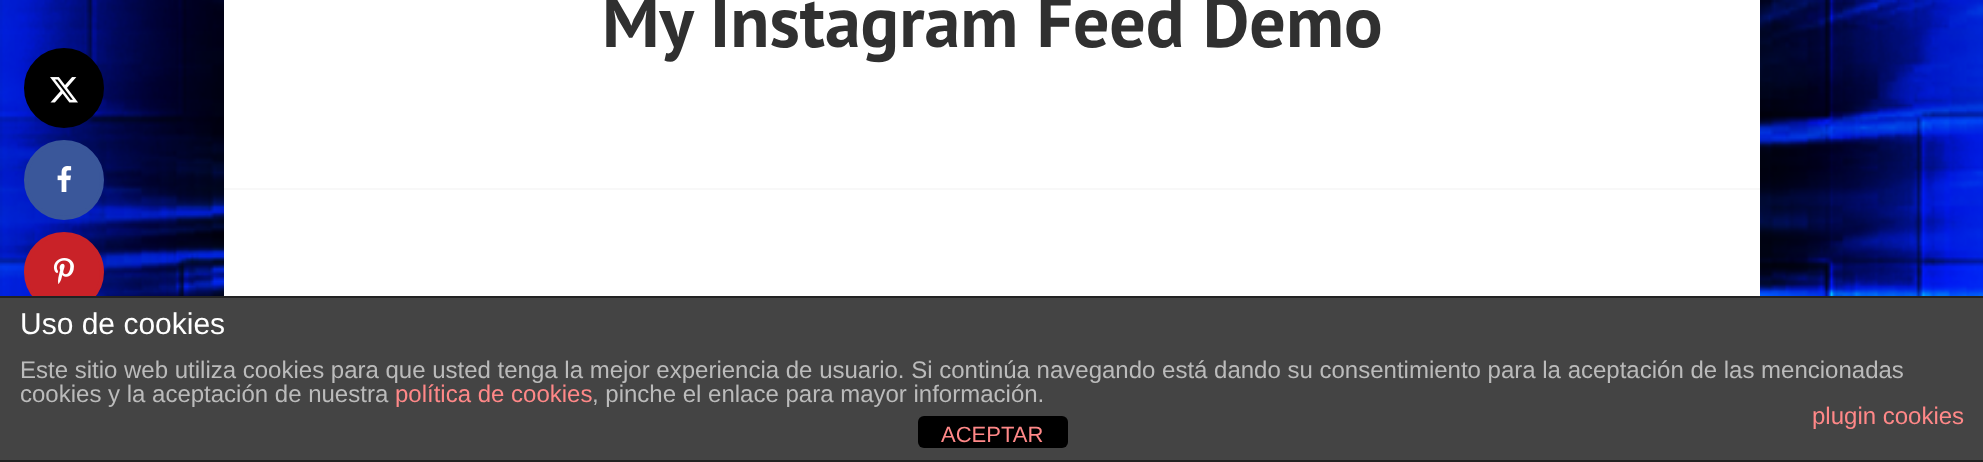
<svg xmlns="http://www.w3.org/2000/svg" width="1983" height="462">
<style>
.a{font:bold 72px PT Sans;fill:#303030}
.b{font:30px Liberation Sans;fill:#fff}
.c{font:24px Liberation Sans;fill:#bbb}
.d{font:24px Liberation Sans;fill:#f88}
.e{font:22px Liberation Sans;fill:#f88}
</style>
<rect width="100%" height="100%" fill="#fff"/>
<image href="1.png" x="0" y="0" width="1983" height="296"/>
<path fill="#fff" d="M224 0h1536v296H224z"/>
<path fill="#f8f8f8" d="M224 188h1536v2H224z"/>
<circle fill="#000" stroke="#000" stroke-width="4" cx="64" cy="88" r="38"/>
<image href="2.png" x="50" y="77" width="28" height="26"/>
<circle fill="#3a579a" stroke="#3a579a" stroke-width="4" cx="64" cy="180" r="38"/>
<image href="3.png" x="57" y="166" width="15" height="26"/>
<circle fill="#c92228" stroke="#c92228" stroke-width="4" cx="64" cy="272" r="38"/>
<image href="4.png" x="53" y="258" width="21" height="26"/>
<path fill="#444" d="M0 298h1983v162H0z"/>
<path fill="#222" d="M0 296h1983v2H0z"/>
<path fill="#222" d="M0 460h1983v2H0z"/>
<rect fill="#000" x="918" y="416" width="150" height="32" rx="6"/>
<text class="a" x="602" y="47">My Instagram Feed Demo</text>
<text class="b" x="20" y="334">Uso de cookies</text>
<text class="c" x="20" y="378">Este sitio web utiliza cookies para que usted tenga la mejor experiencia de usuario. Si continúa navegando está dando su consentimiento para la aceptación de las mencionadas</text>
<text class="c" x="20" y="402">cookies y la aceptación de nuestra</text>
<text class="d" x="395" y="402">política de cookies</text>
<text class="c" x="592" y="402">, pinche el enlace para mayor información.</text>
<text class="d" x="1812" y="424">plugin cookies</text>
<text class="e" x="941" y="442">ACEPTAR</text>
</svg>
